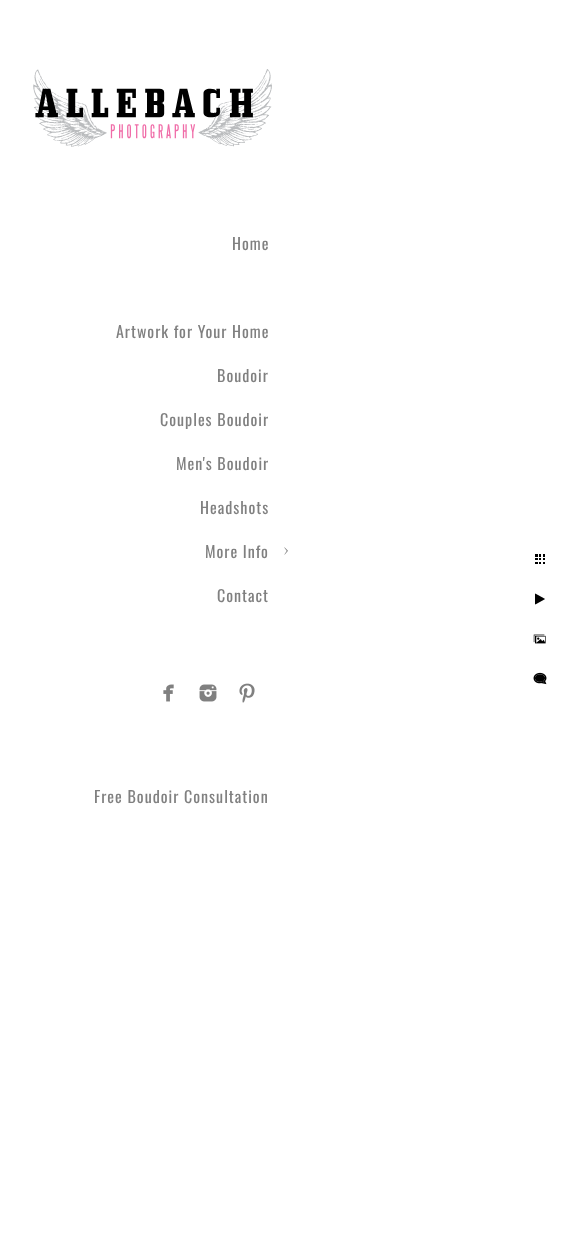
<svg xmlns="http://www.w3.org/2000/svg" width="565" height="1257">
<style>
.a{font:16px Oswald;letter-spacing:1px;fill:#808080}
</style>
<rect width="100%" height="100%" fill="#fff"/>
<image href="1.png" x="33" y="69" width="239" height="78"/>
<image href="2.png" x="284" y="547" width="4" height="8"/>
<image href="3.png" x="163" y="684" width="11" height="18"/>
<image href="4.png" x="199" y="684" width="18" height="18"/>
<image href="5.png" x="239" y="683" width="16" height="20"/>
<image href="6.png" x="535" y="554" width="10" height="10"/>
<image href="7.png" x="535" y="593" width="10" height="12"/>
<image href="8.png" x="533" y="634" width="13" height="10"/>
<image href="9.png" x="533" y="672" width="14" height="13"/>
<text class="a" x="232" y="250">Home</text>
<text class="a" x="116" y="338">Artwork for Your Home</text>
<text class="a" x="217" y="382">Boudoir</text>
<text class="a" x="160" y="426">Couples Boudoir</text>
<text class="a" x="176" y="470">Men's Boudoir</text>
<text class="a" x="200" y="514">Headshots</text>
<text class="a" x="205" y="558">More Info</text>
<text class="a" x="217" y="602">Contact</text>
<text class="a" x="94" y="803">Free Boudoir Consultation</text>
</svg>
